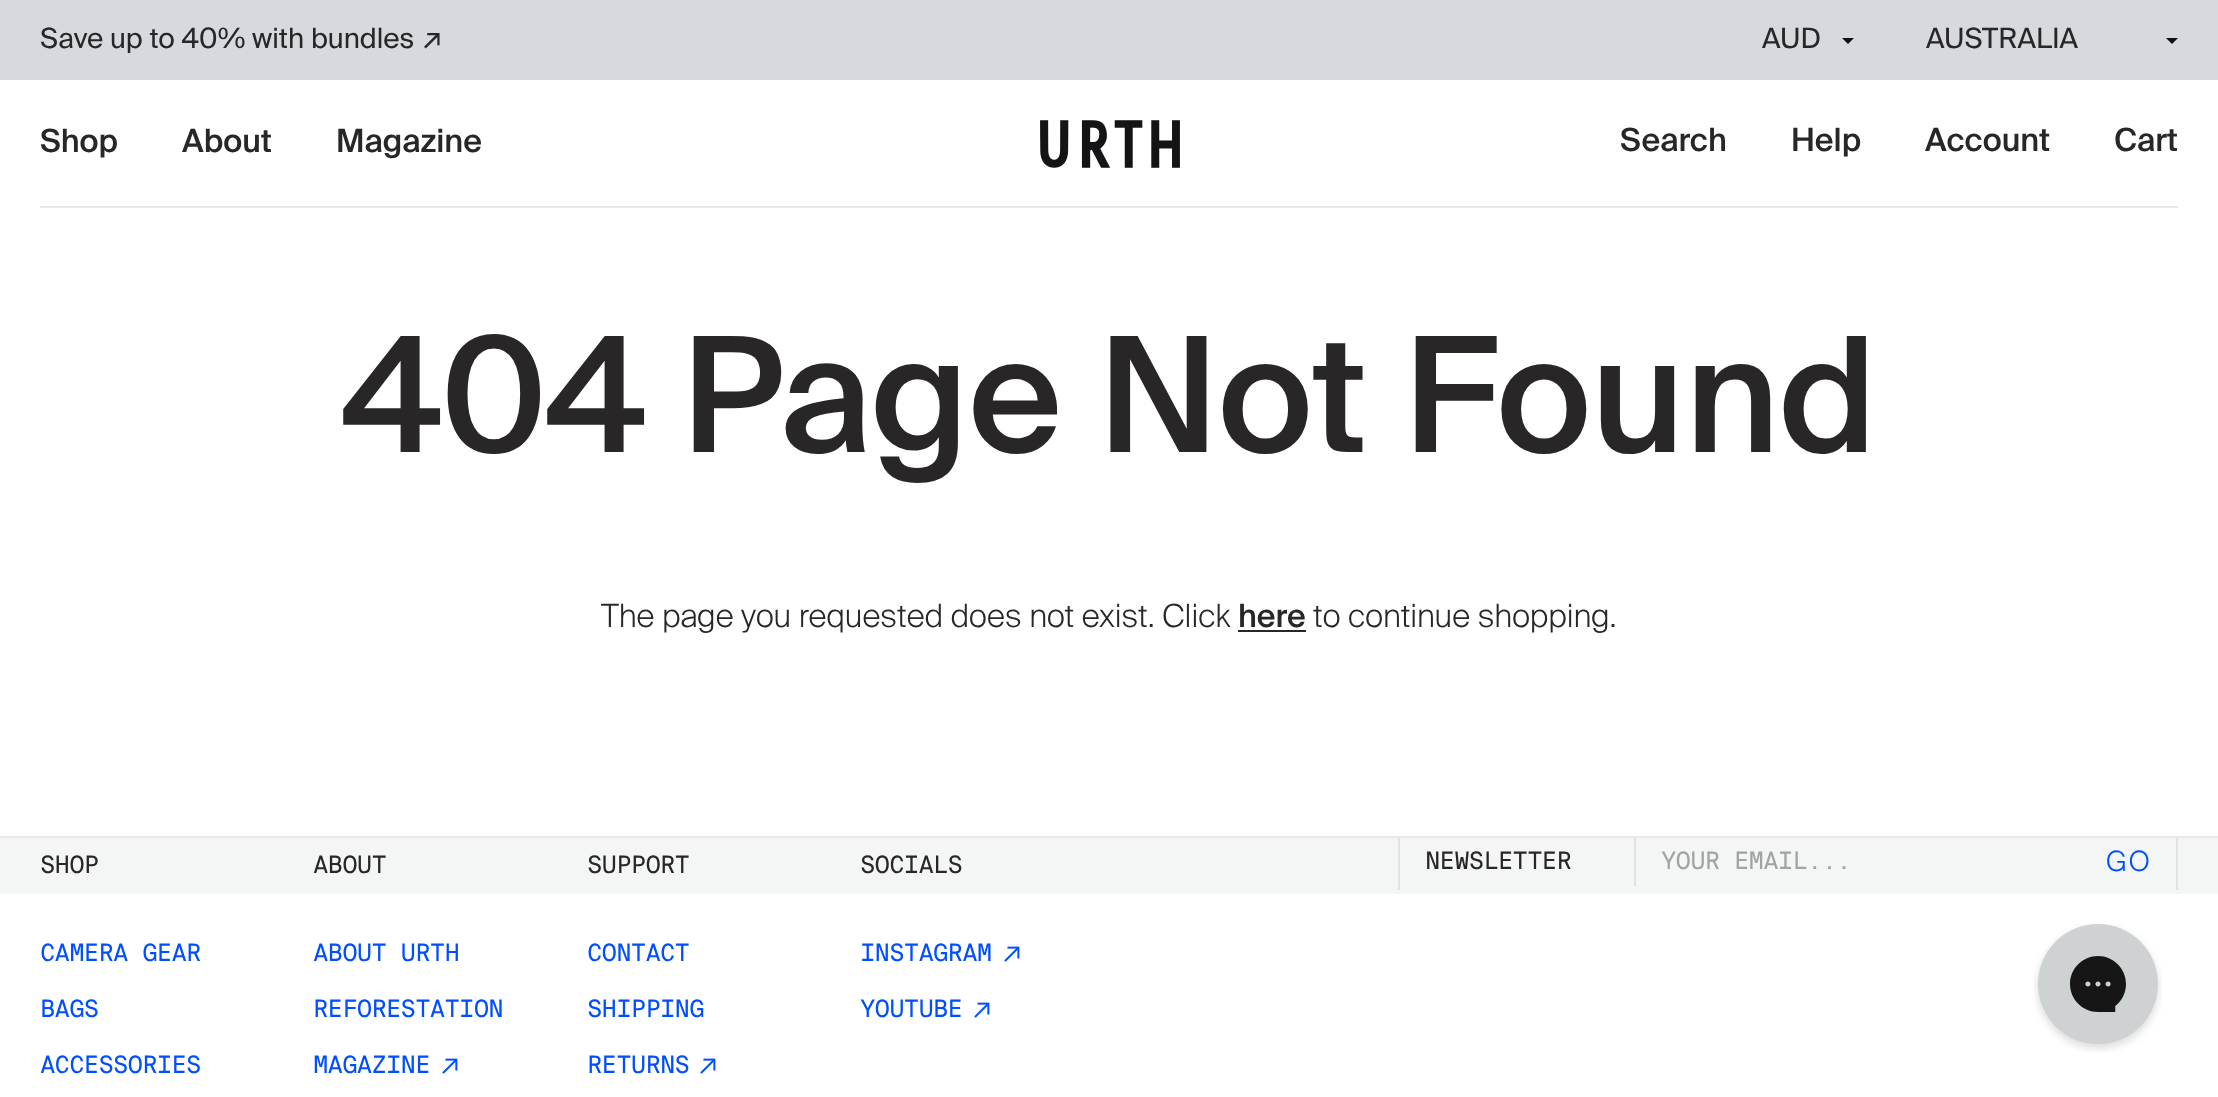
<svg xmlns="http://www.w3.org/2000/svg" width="2218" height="1097">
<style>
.a{font:28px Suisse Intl;fill:#282626}
.b{font:500 32px Suisse Intl;fill:#282626}
.c{font:500 160px Suisse Intl;fill:#282626}
.d{font:300 32px Suisse Intl;fill:#282626}
.e{font:24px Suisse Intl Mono;letter-spacing:-0.9px;fill:#282626}
.f{font:24px Suisse Intl Mono;letter-spacing:-0.9px;fill:#014eff}
.g{font:24px Suisse Intl Mono;letter-spacing:-0.9px;fill:#a2a3a3}
.h{font:300 28px Suisse Intl;letter-spacing:2px;fill:#014eff}
</style>
<rect width="100%" height="100%" fill="#fff"/>
<path fill="#d6d9de" d="M0 0h2218v80H0z"/>
<path fill="#111" d="M1848 44l-6-6h12z"/>
<path fill="#111" d="M2172 44l-6-6h12z"/>
<image href="1.png" x="1040" y="120" width="140" height="48"/>
<path fill="#eae9e9" d="M40 206h2138v2H40z"/>
<path fill="#282626" d="M1238 630h68v2H1238z"/>
<path fill="#eae9e9" d="M0 836h2218v2H0z"/>
<path fill="#f4f6f6" d="M0 838h2218v56H0z"/>
<image href="2.png" x="442" y="1058" width="16" height="16"/>
<image href="2.png" x="700" y="1058" width="16" height="16"/>
<image href="2.png" x="1004" y="946" width="16" height="16"/>
<image href="2.png" x="974" y="1002" width="16" height="16"/>
<path fill="#e0e1e1" d="M2176 838h2v52H2176z"/>
<path fill="#e0e1e1" d="M1398 838h2v52H1398z"/>
<path fill="#e0e1e1" d="M1634 838h2v48H1634z"/>
<image href="3.png" x="2034" y="924" width="128" height="128"/>
<text class="a" x="40" y="48">Save up to 40% with bundles ↗</text>
<text class="a" x="1762" y="48">AUD</text>
<text class="a" x="1926" y="48">AUSTRALIA</text>
<text class="b" x="40" y="152">Shop</text>
<text class="b" x="182" y="152">About</text>
<text class="b" x="336" y="152">Magazine</text>
<text class="b" x="1620" y="151">Search</text>
<text class="b" x="1791" y="151">Help</text>
<text class="b" x="1925" y="151">Account</text>
<text class="b" x="2114" y="151">Cart</text>
<text class="c" x="342" y="452">404 Page Not Found</text>
<text class="d" x="601" y="627">The page you requested does not exist. Click</text>
<text class="b" x="1238" y="627">here</text>
<text class="d" x="1313" y="627">to continue shopping.</text>
<text class="e" x="40" y="873">SHOP</text>
<text class="f" x="40" y="961">CAMERA GEAR</text>
<text class="f" x="40" y="1017">BAGS</text>
<text class="f" x="40" y="1073">ACCESSORIES</text>
<text class="e" x="313" y="873">ABOUT</text>
<text class="f" x="313" y="961">ABOUT URTH</text>
<text class="f" x="313" y="1017">REFORESTATION</text>
<text class="f" x="313" y="1073">MAGAZINE</text>
<text class="e" x="587" y="873">SUPPORT</text>
<text class="f" x="587" y="961">CONTACT</text>
<text class="f" x="587" y="1017">SHIPPING</text>
<text class="f" x="587" y="1073">RETURNS</text>
<text class="e" x="860" y="873">SOCIALS</text>
<text class="f" x="860" y="961">INSTAGRAM</text>
<text class="f" x="860" y="1017">YOUTUBE</text>
<text class="e" x="1425" y="869">NEWSLETTER</text>
<text class="g" x="1661" y="869">YOUR EMAIL...</text>
<text class="h" x="2106" y="871">GO</text>
</svg>
